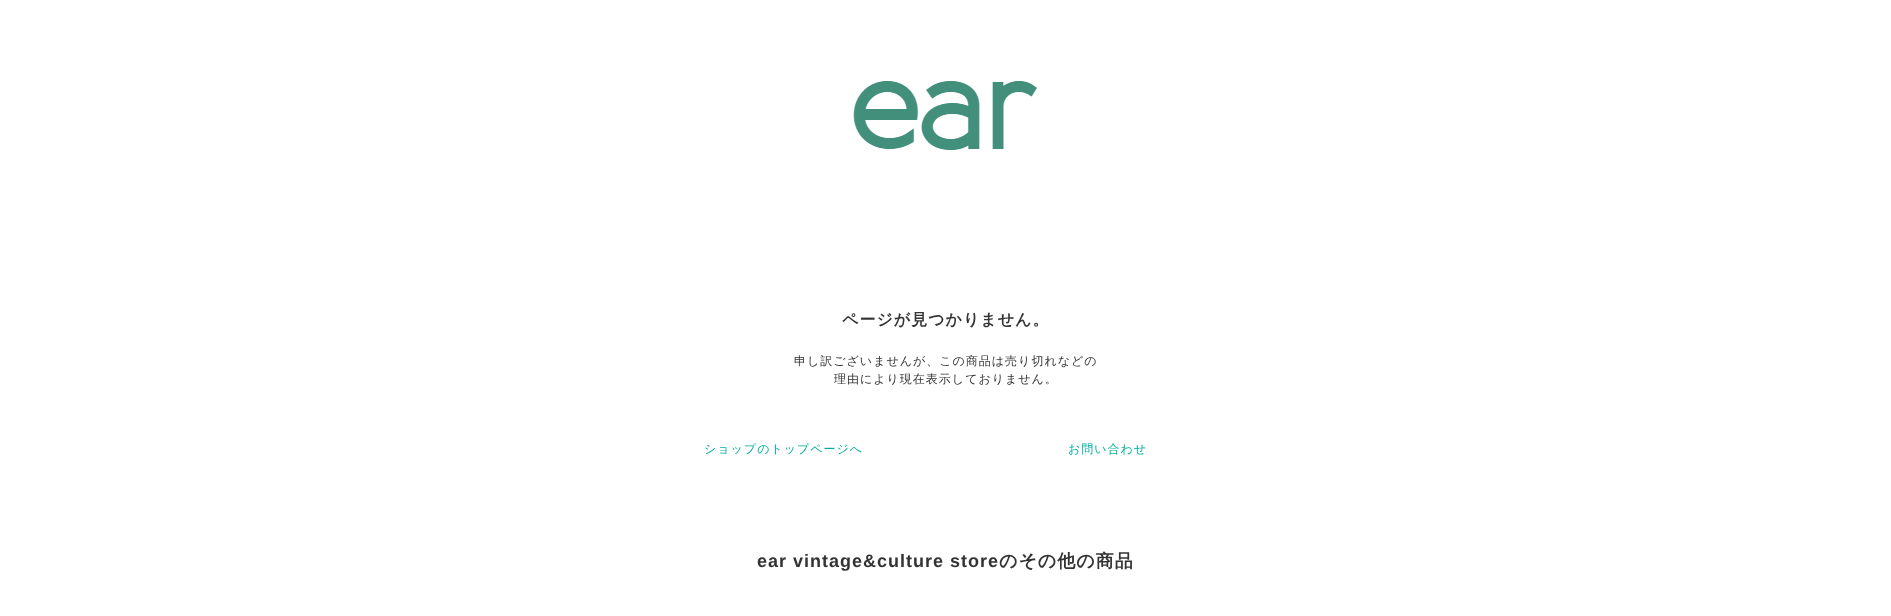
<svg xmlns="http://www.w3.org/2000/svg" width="1891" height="616">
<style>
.a{font:bold 16px WenQuanYi Zen Hei;letter-spacing:1px;fill:#333}
.b{font:500 12px WenQuanYi Zen Hei;letter-spacing:1px;fill:#333}
.c{font:500 12px WenQuanYi Zen Hei;letter-spacing:1px;fill:#00ae9f}
.d{font:bold 18px Liberation Sans;letter-spacing:1px;fill:#333}
.e{font:bold 18px WenQuanYi Zen Hei;letter-spacing:1px;fill:#333}
</style>
<rect width="100%" height="100%" fill="#fff"/>
<image href="1.png" x="853" y="81" width="184" height="69"/>
<text class="a" x="842" y="325">ページが見つかりません。</text>
<text class="b" x="794" y="365">申し訳ございませんが、この商品は売り切れなどの</text>
<text class="b" x="834" y="383">理由により現在表示しておりません。</text>
<text class="c" x="704" y="453">ショップのトップページへ</text>
<text class="c" x="1068" y="453">お問い合わせ</text>
<text class="d" x="757" y="567">ear vintage&amp;culture store</text>
<text class="e" x="999" y="567">のその他の商品</text>
</svg>
